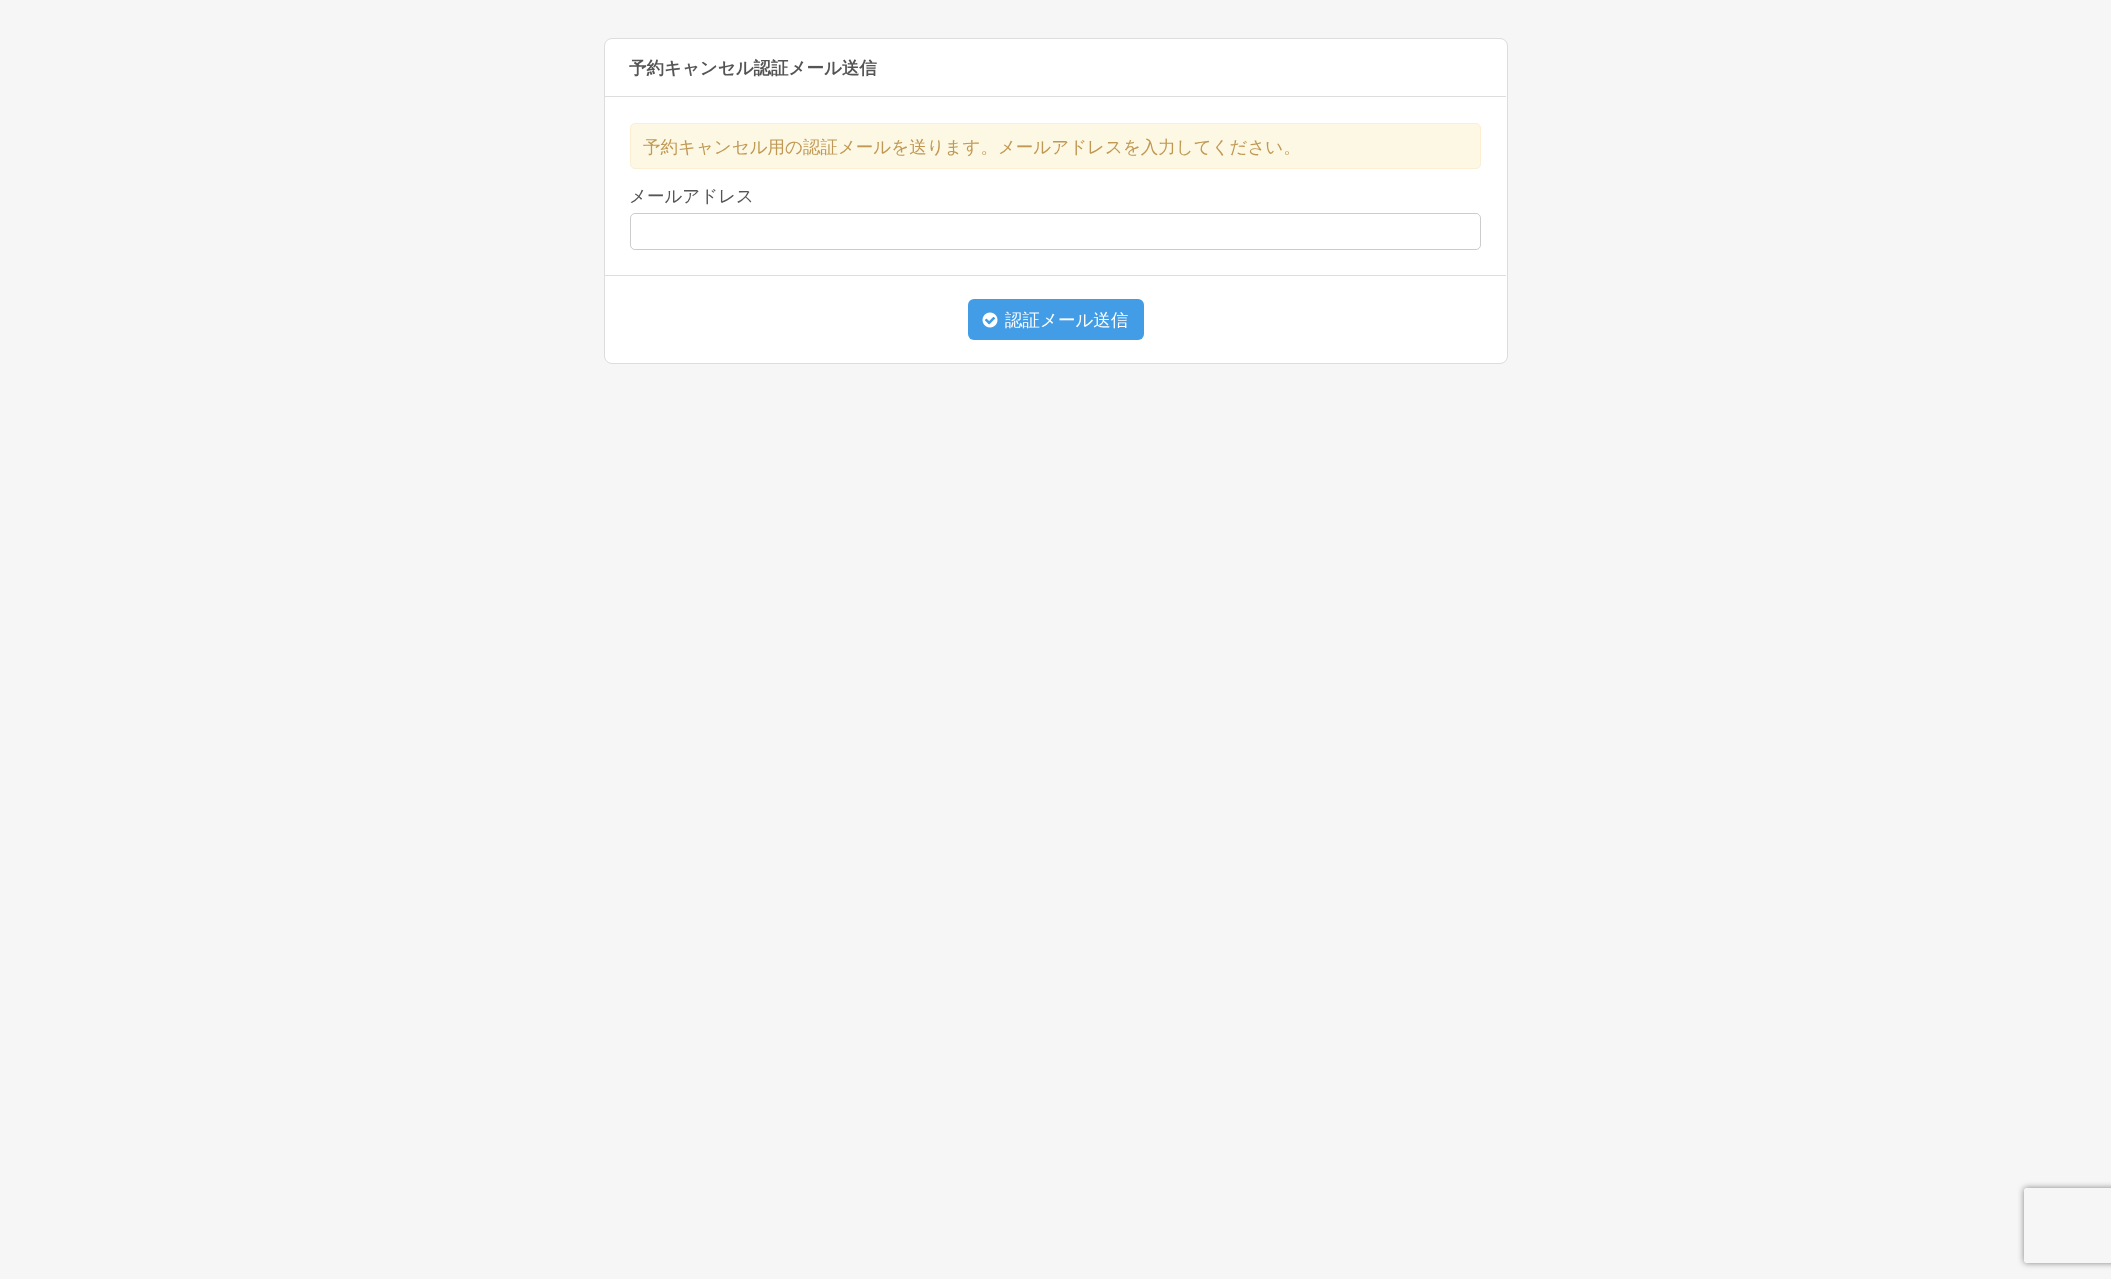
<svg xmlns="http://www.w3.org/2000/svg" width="2111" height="1279">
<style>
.a{font:bold 17.5px WenQuanYi Zen Hei;fill:#555}
.b{font:500 17.5px WenQuanYi Zen Hei;fill:#c09853}
.c{font:500 17.5px WenQuanYi Zen Hei;fill:#555}
.d{font:500 17.5px WenQuanYi Zen Hei;fill:#fff}
</style>
<defs>
<clipPath id="clip1"><path d="M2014 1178h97v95h-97zm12.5 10h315c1.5 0 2.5 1 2.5 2.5v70c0 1.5-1 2.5-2.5 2.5h-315c-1.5 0-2.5-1-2.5-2.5v-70c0-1.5 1-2.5 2.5-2.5z" clip-rule="evenodd"/></clipPath>
</defs>
<rect width="100%" height="100%" fill="#f6f6f6"/>
<rect fill="#fff" stroke="#ddd" x="604.5" y="38.5" width="903" height="325" rx="7.5"/>
<path fill="#ddd" d="M605 96h901v1H605z"/>
<rect fill="#fcf8e3" stroke="#fbeed5" x="630.5" y="123.5" width="850" height="45" rx="4.5"/>
<rect fill="none" stroke="#ccc" x="630.5" y="213.5" width="850" height="36" rx="4.5"/>
<path fill="#ddd" d="M605 275h901v1H605z"/>
<rect fill="#429ce6" x="968" y="299" width="176" height="41" rx="6"/>
<image href="1.png" x="982" y="312" width="16" height="16"/>
<g clip-path="url(#clip1)">
<rect fill="#808080" filter="blur(3px)" x="2024" y="1188" width="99" height="75" rx="2.5"/>
</g>
<text class="a" x="629" y="74">予約キャンセル認証メール送信</text>
<text class="b" x="643" y="153">予約キャンセル用の認証メールを送ります。メールアドレスを入力してください。</text>
<text class="c" x="629" y="202">メールアドレス</text>
<text class="d" x="1005" y="326">認証メール送信</text>
</svg>
